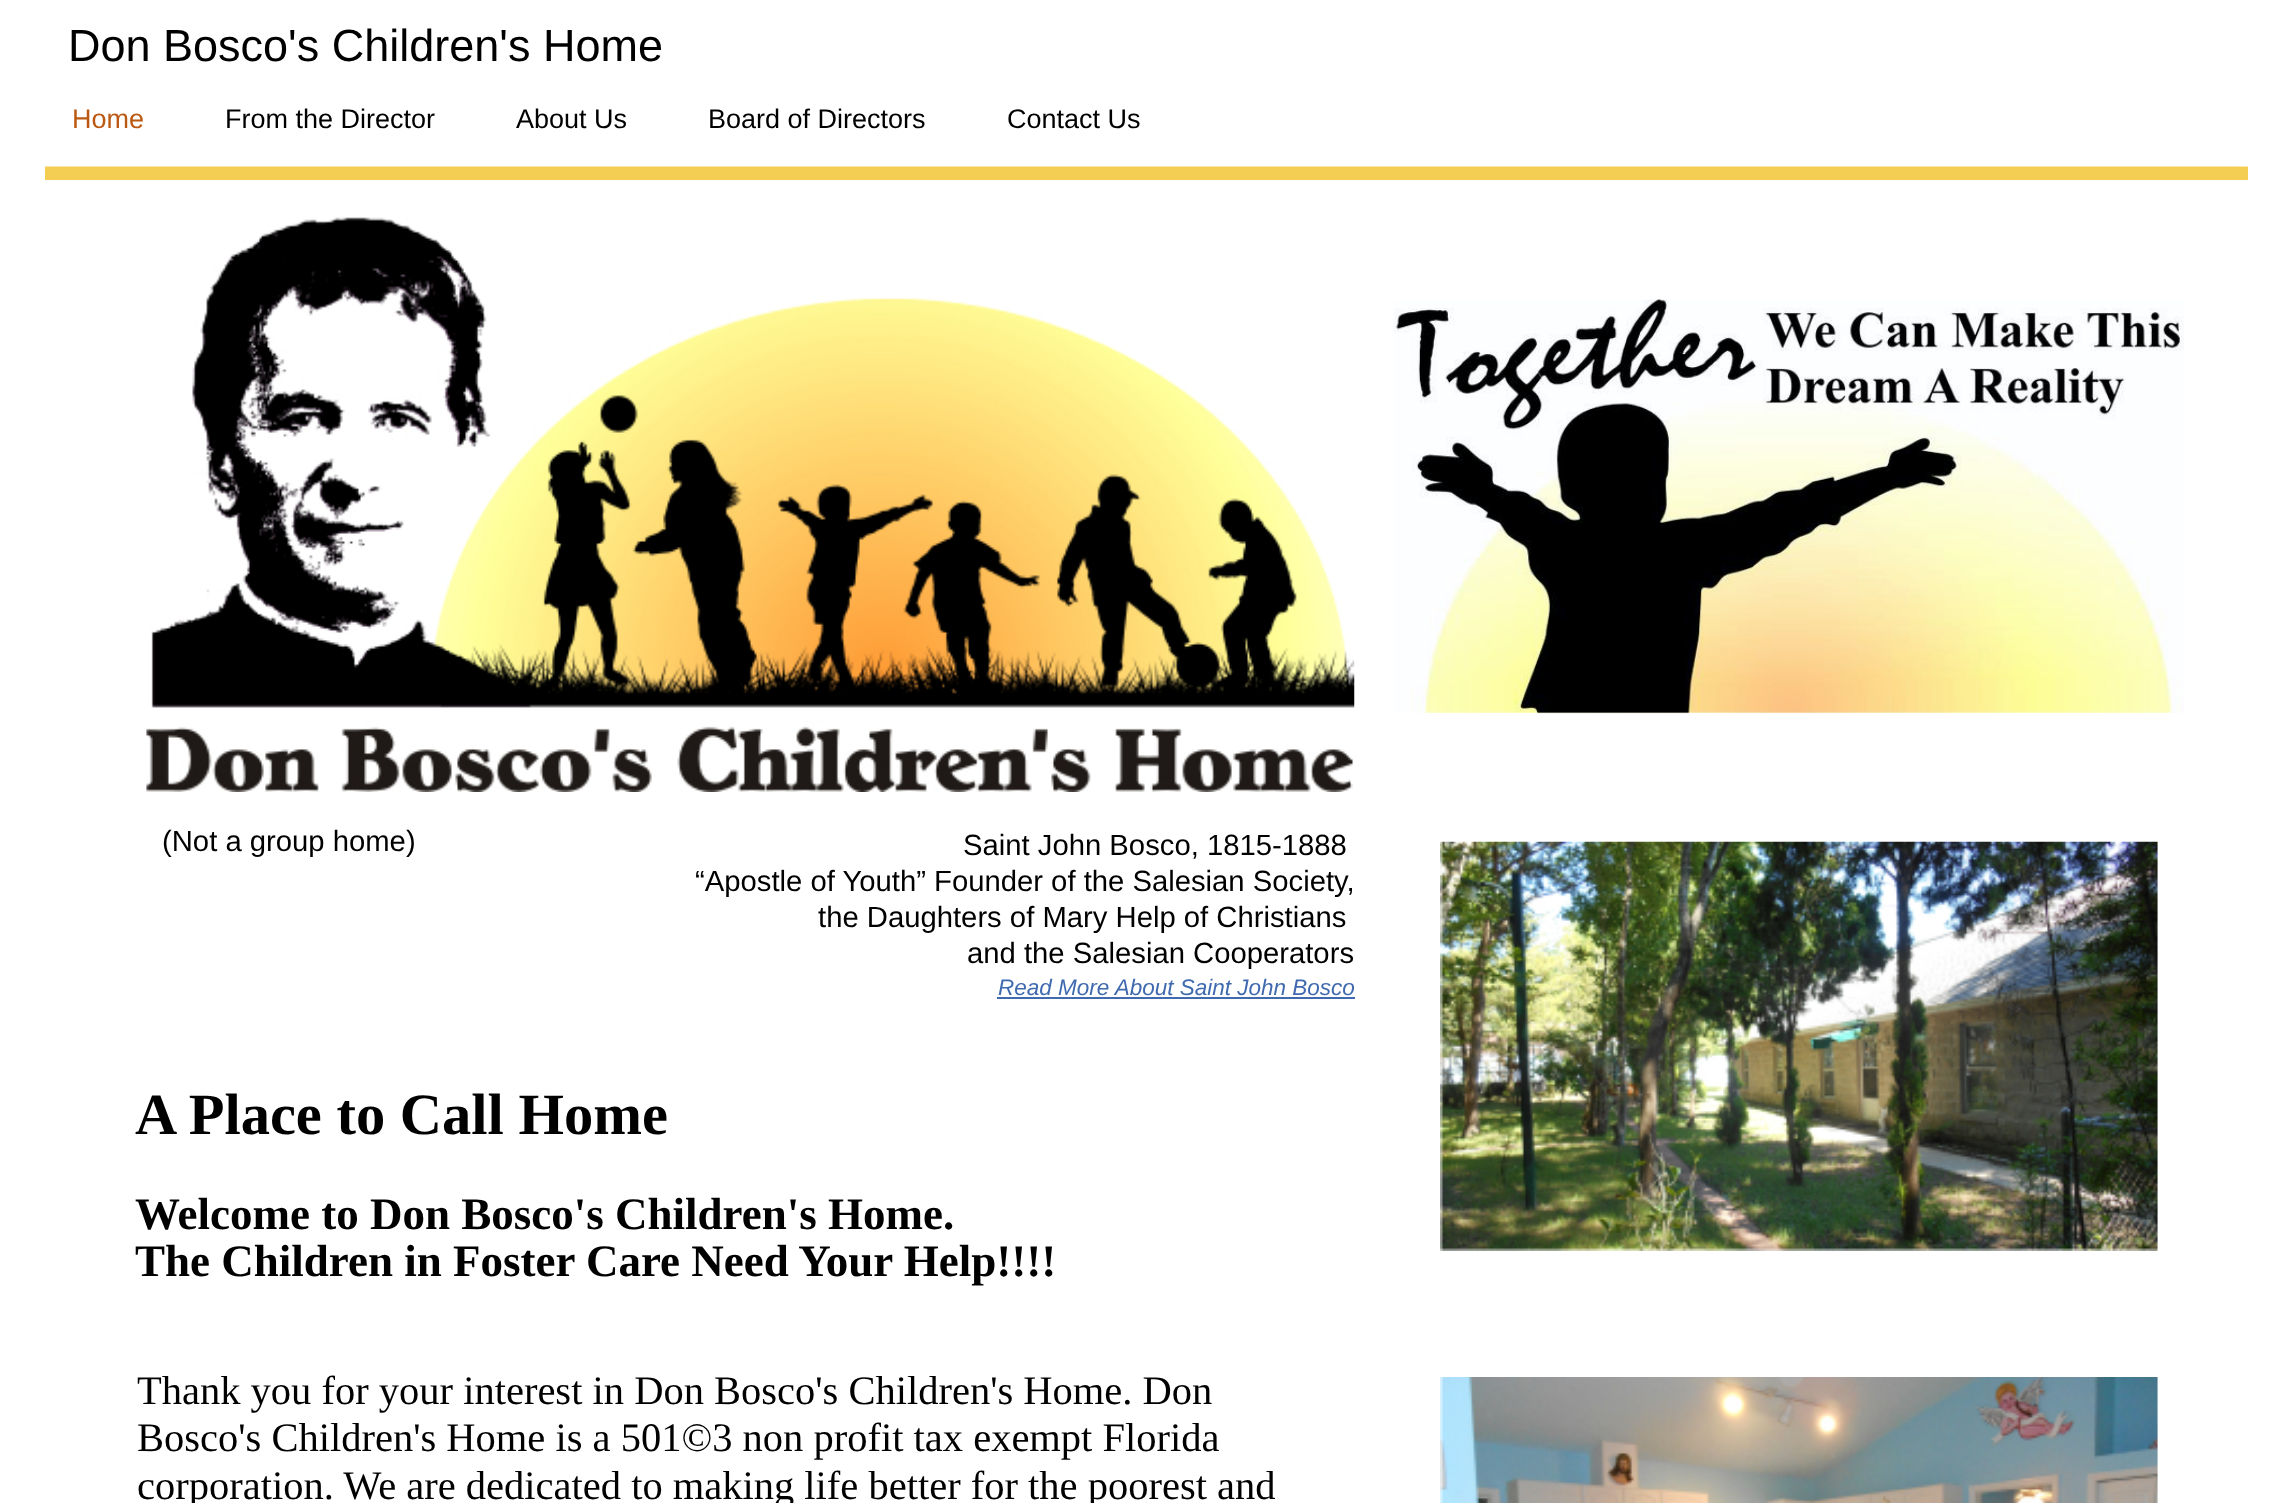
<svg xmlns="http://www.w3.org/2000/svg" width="2295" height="1503">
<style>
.a{font:45px Liberation Sans;fill:#000}
.b{font:27px Liberation Sans;fill:#bb5913}
.c{font:27px Liberation Sans;fill:#000}
.d{font:29.25px Liberation Sans;fill:#000}
.e{font:italic 22.5px Liberation Sans;fill:#406ab0}
.f{font:bold 58.5px Liberation Serif;fill:#000}
.g{font:bold 45px Liberation Serif;fill:#000}
.h{font:40.5px Liberation Serif;fill:#000}
</style>
<rect width="100%" height="100%" fill="#fff"/>
<path fill="#f4ce53" d="M45 167h2203v13H45z"/>
<image href="1.png" x="45" y="166" width="2203" height="1"/>
<image href="2.png" x="146" y="217" width="1209" height="575"/>
<image href="3.png" x="1394" y="299" width="790" height="415"/>
<path fill="#406ab0" d="M997 997h358v2H997z"/>
<image href="4.png" x="1440" y="841" width="718" height="410"/>
<image href="5.png" x="1440" y="1377" width="718" height="126"/>
<text class="a" x="68" y="61">Don Bosco's Children's Home</text>
<text class="b" x="72" y="128">Home</text>
<text class="c" x="225" y="128">From the Director</text>
<text class="c" x="516" y="128">About Us</text>
<text class="c" x="708" y="128">Board of Directors</text>
<text class="c" x="1007" y="128">Contact Us</text>
<text class="d" x="162" y="851">(Not a group home)</text>
<text class="d" x="963" y="855">Saint John Bosco, 1815-1888</text>
<text class="d" x="695" y="891">“Apostle of Youth” Founder of the Salesian Society,</text>
<text class="d" x="818" y="927">the Daughters of Mary Help of Christians</text>
<text class="d" x="967" y="963">and the Salesian Cooperators</text>
<text class="e" x="998" y="995">Read More About Saint John Bosco</text>
<text class="f" x="135" y="1134">A Place to Call Home</text>
<text class="g" x="135" y="1229">Welcome to Don Bosco's Children's Home.</text>
<text class="g" x="135" y="1276">The Children in Foster Care Need Your Help!!!!</text>
<text class="h" x="137" y="1404">Thank you for your interest in Don Bosco's Children's Home. Don</text>
<text class="h" x="137" y="1451">Bosco's Children's Home is a 501©3 non profit tax exempt Florida</text>
<text class="h" x="137" y="1499">corporation. We are dedicated to making life better for the poorest and</text>
</svg>
